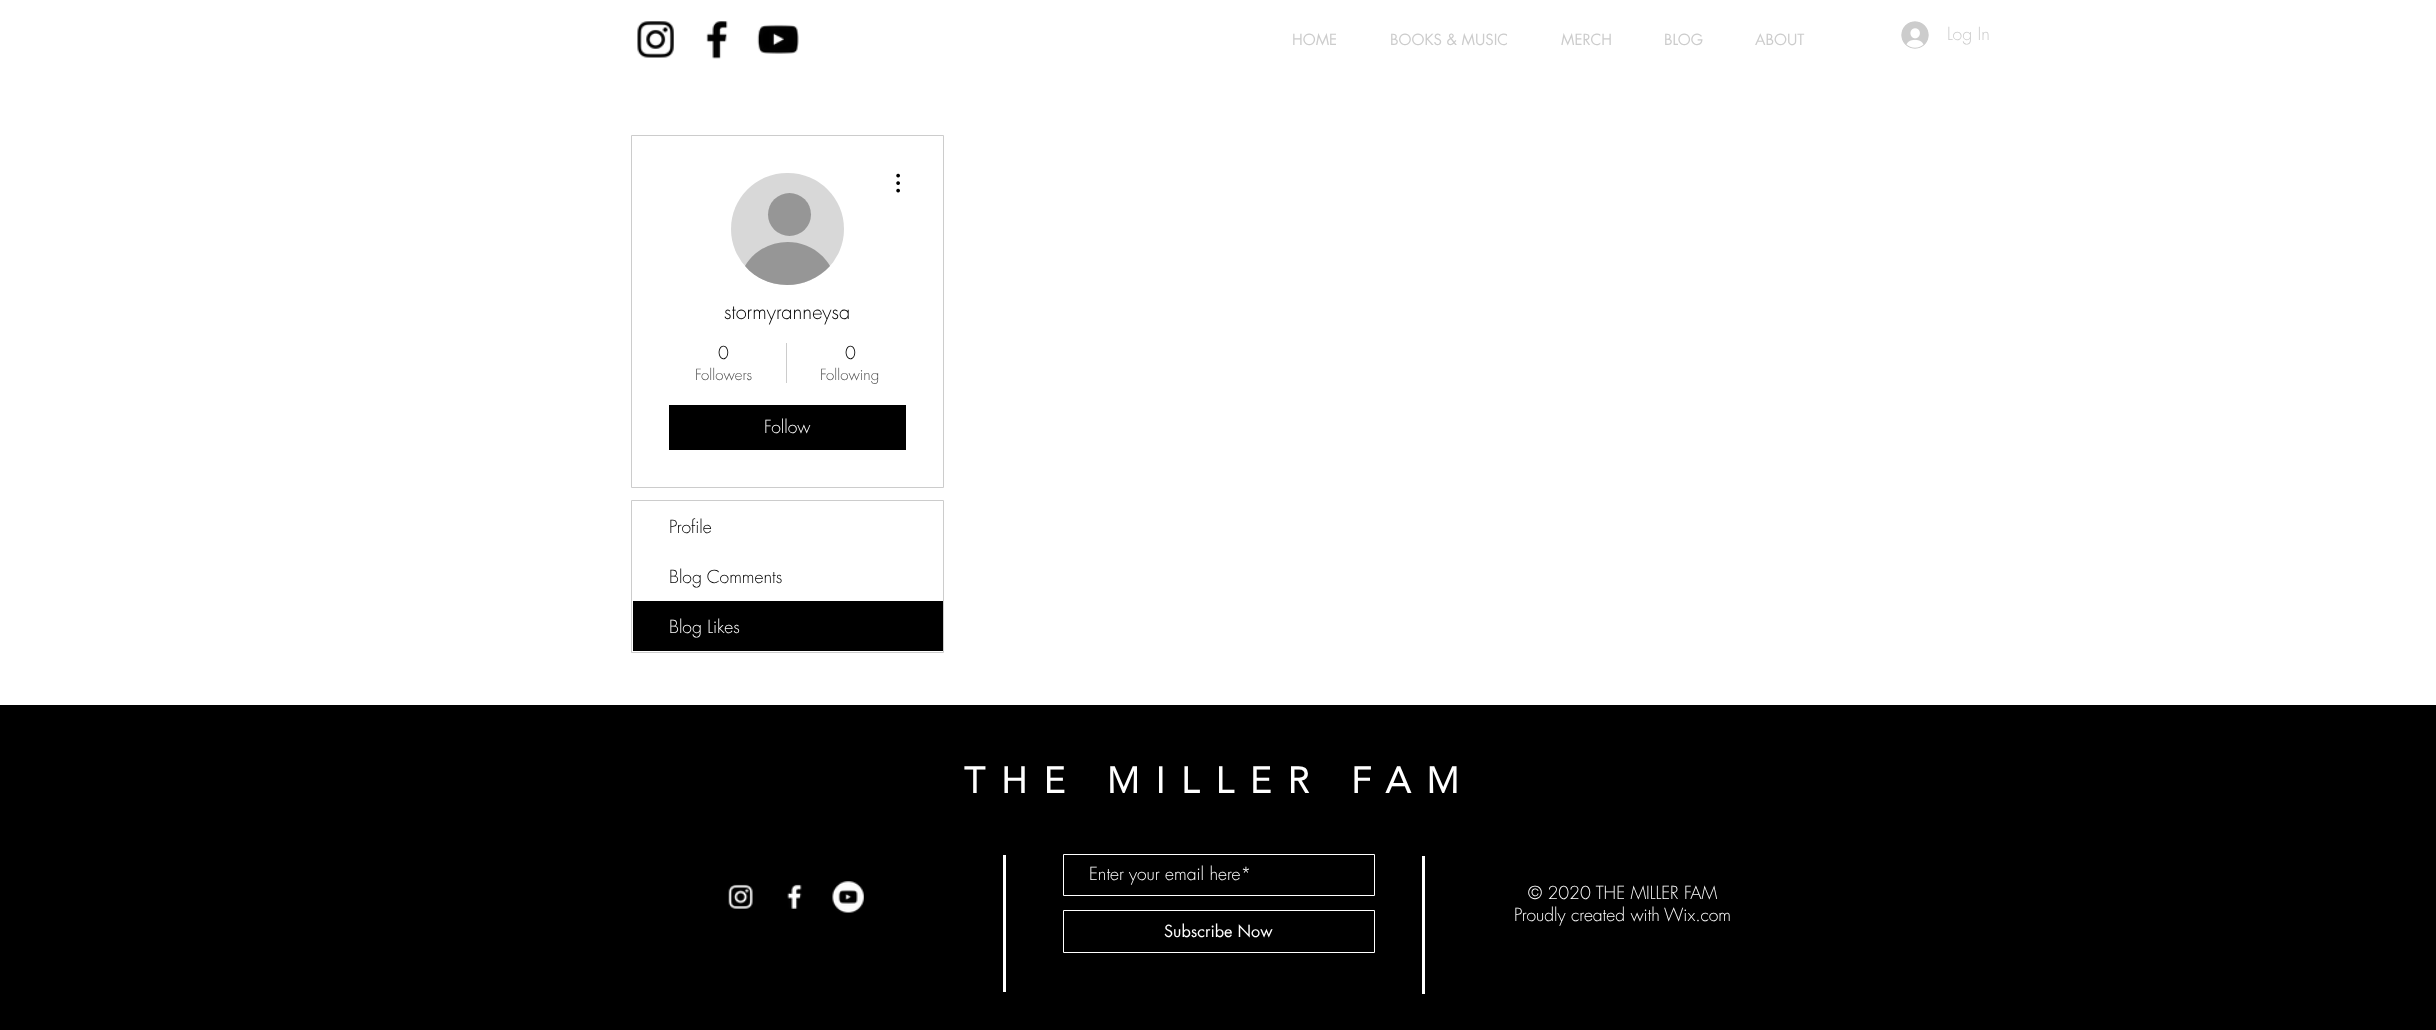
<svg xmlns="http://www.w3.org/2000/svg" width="2436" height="1030">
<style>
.a{font:15px futura;fill:#ccc}
.b{font:300 17.5px futura;fill:#ccc}
.c{font:300 20px futura;fill:#000}
.d{font:300 17.5px futura;fill:#000}
.e{font:300 15px futura;fill:#4d4d4d}
.f{font:300 17.5px futura;fill:#fff}
.g{font:bold 36.25px 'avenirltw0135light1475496';letter-spacing:16.25px;fill:#fff}
.h{font:16.25px futura;fill:#fff}
</style>
<rect width="100%" height="100%" fill="#fff"/>
<image href="1.png" x="637" y="21" width="37" height="37"/>
<image href="2.png" x="706" y="21" width="22" height="38"/>
<image href="3.png" x="757" y="24" width="42" height="30"/>
<image href="4.png" x="1901" y="21" width="28" height="28"/>
<path fill="none" stroke="#ccc" d="M631.5 135.5h312v352H631.5z"/>
<rect fill="#d8d8d8" x="731" y="173" width="113" height="112" rx="56"/>
<circle fill="#969696" cx="789.5" cy="214.5" r="21.5"/>
<path fill="#969696" d="M787 285c16 0 32-7 43-19c-19-32-66-32-85 0c10 12 25 19 42 19z"/>
<image href="5.png" x="896" y="173" width="4" height="20"/>
<path fill="#ccc" d="M786 343h1v40H786z"/>
<path fill="#000" d="M669 405h237v45H669z"/>
<path fill="none" stroke="#ccc" d="M631.5 500.5h312v152H631.5z"/>
<path fill="#000" d="M633 601h310v50H633z"/>
<path fill="#000" d="M0 705h2436v325H0z"/>
<image href="6.png" x="728" y="884" width="25" height="25"/>
<image href="7.png" x="787" y="884" width="15" height="25"/>
<image href="8.png" x="832" y="881" width="32" height="32"/>
<path fill="#fff" d="M1003 855h3v137H1003z"/>
<path fill="none" stroke="#fff" d="M1063.5 854.5h311v41H1063.5z"/>
<path fill="none" stroke="#fff" d="M1063.5 910.5h311v42H1063.5z"/>
<path fill="#fff" d="M1422 856h3v138H1422z"/>
<text class="a" x="1292" y="45">HOME</text>
<text class="a" x="1390" y="45">BOOKS &amp; MUSIC</text>
<text class="a" x="1561" y="45">MERCH</text>
<text class="a" x="1664" y="45">BLOG</text>
<text class="a" x="1755" y="45">ABOUT</text>
<text class="b" x="1947" y="40">Log In</text>
<text class="c" x="724" y="319">stormyranneysa</text>
<text class="d" x="718" y="359">0</text>
<text class="e" x="695" y="380">Followers</text>
<text class="d" x="845" y="359">0</text>
<text class="e" x="820" y="380">Following</text>
<text class="f" x="764" y="433">Follow</text>
<text class="d" x="669" y="533">Profile</text>
<text class="d" x="669" y="583">Blog Comments</text>
<text class="f" x="669" y="633">Blog Likes</text>
<text class="g" x="964" y="793">THE MILLER FAM</text>
<text class="f" x="1089" y="880">Enter your email here*</text>
<text class="h" x="1164" y="937">Subscribe Now</text>
<text class="f" x="1528" y="899">© 2020 THE MILLER FAM</text>
<text class="f" x="1514" y="921">Proudly created with</text>
<text class="f" x="1664" y="921">Wix.com</text>
</svg>
